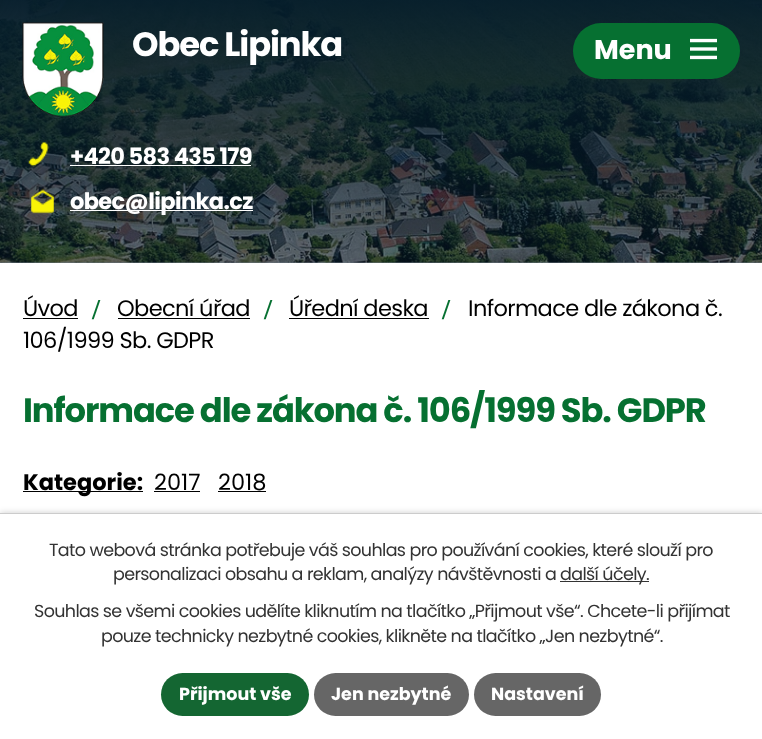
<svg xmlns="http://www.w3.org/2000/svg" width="762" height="739">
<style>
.a{font:bold 33.75px Poppins;letter-spacing:-1.1px;fill:#fff}
.b{font:bold 22.5px Poppins;letter-spacing:-0.62px;fill:#fff}
.c{font:bold 27px Poppins;fill:#fff}
.d{font:22.5px Poppins;letter-spacing:-0.62px;fill:#000}
.e{font:bold 29px Liberation Serif;letter-spacing:-0.62px;fill:#067031}
.f{font:bold 33.75px Poppins;letter-spacing:-1.1px;fill:#067031}
.g{font:bold 22.5px Poppins;fill:#000}
.h{font:22.5px Poppins;fill:#000}
.i{font:17.5px Poppins;letter-spacing:-0.62px;fill:#333}
.j{font:bold 17.5px Poppins;fill:#fff}
</style>
<defs>
<linearGradient id="g1" gradientUnits="userSpaceOnUse" x1="381" y1="263" x2="381" y2="0"><stop offset="0" stop-color="#041727" stop-opacity="0.6"/><stop offset="1" stop-color="#041c2b" stop-opacity="0.97"/></linearGradient>
</defs>
<rect width="100%" height="100%" fill="#fff"/>
<image href="1.png" x="0" y="0" width="762" height="263"/>
<path fill="url(#g1)" d="M0 0h762v263H0z"/>
<image href="2.png" x="22" y="22" width="82" height="95"/>
<image href="3.png" x="28" y="142" width="21" height="25"/>
<path fill="#fff" d="M70 165h181v1H70z"/>
<image href="4.png" x="31" y="189" width="23" height="25"/>
<path fill="#fff" d="M70 210h183v1H70z"/>
<rect fill="#067031" x="573" y="23" width="167" height="56" rx="28"/>
<image href="5.png" x="690" y="38" width="27" height="22"/>
<path fill="#000" d="M23 318h55v1H23z"/>
<path fill="#000" d="M118 318h132v1H118z"/>
<path fill="#000" d="M289 318h140v1H289z"/>
<path fill="#000" d="M23 491h120v1H23z"/>
<path fill="#000" d="M154 491h46v1H154z"/>
<path fill="#000" d="M218 491h48v1H218z"/>
<path fill="#00000033" filter="blur(3px)" d="M0 513h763v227H0z"/>
<path fill="#fff" d="M0 514h762v225H0z"/>
<path fill="#ccc" d="M0 513h762v1H0z"/>
<path fill="#333" d="M560 581h89v1H560z"/>
<rect fill="#146632" x="161" y="673" width="148" height="43" rx="21.5"/>
<rect fill="#666" x="314" y="673" width="155" height="43" rx="21.5"/>
<rect fill="#666" x="474" y="673" width="127" height="43" rx="21.5"/>
<text class="a" x="132" y="56">Obec Lipinka</text>
<text class="b" x="70" y="164">+420 583 435 179</text>
<text class="b" x="70" y="209">obec@lipinka.cz</text>
<text class="c" x="594" y="59">Menu</text>
<text class="d" x="23" y="316">Úvod</text>
<text class="e" x="92" y="319">/</text>
<text class="d" x="117" y="316">Obecní úřad</text>
<text class="e" x="264" y="319">/</text>
<text class="d" x="289" y="316">Úřední deska</text>
<text class="e" x="442" y="319">/</text>
<text class="d" x="468" y="316">Informace dle zákona č.</text>
<text class="d" x="23" y="348">106/1999 Sb. GDPR</text>
<text class="f" x="23" y="422">Informace dle zákona č. 106/1999 Sb. GDPR</text>
<text class="g" x="23" y="490">Kategorie:</text>
<text class="h" x="154" y="490">2017</text>
<text class="h" x="218" y="490">2018</text>
<text class="i" x="49" y="556">Tato webová stránka potřebuje váš souhlas pro používání cookies, které slouží pro</text>
<text class="i" x="113" y="580">personalizaci obsahu a reklam, analýzy návštěvnosti a</text>
<text class="i" x="560" y="580">další účely.</text>
<text class="i" x="34" y="617">Souhlas se všemi cookies udělíte kliknutím na tlačítko „Přijmout vše“. Chcete-li přijímat</text>
<text class="i" x="101" y="642">pouze technicky nezbytné cookies, klikněte na tlačítko „Jen nezbytné“.</text>
<text class="j" x="179" y="700">Přijmout vše</text>
<text class="j" x="331" y="700">Jen nezbytné</text>
<text class="j" x="491" y="700">Nastavení</text>
</svg>
